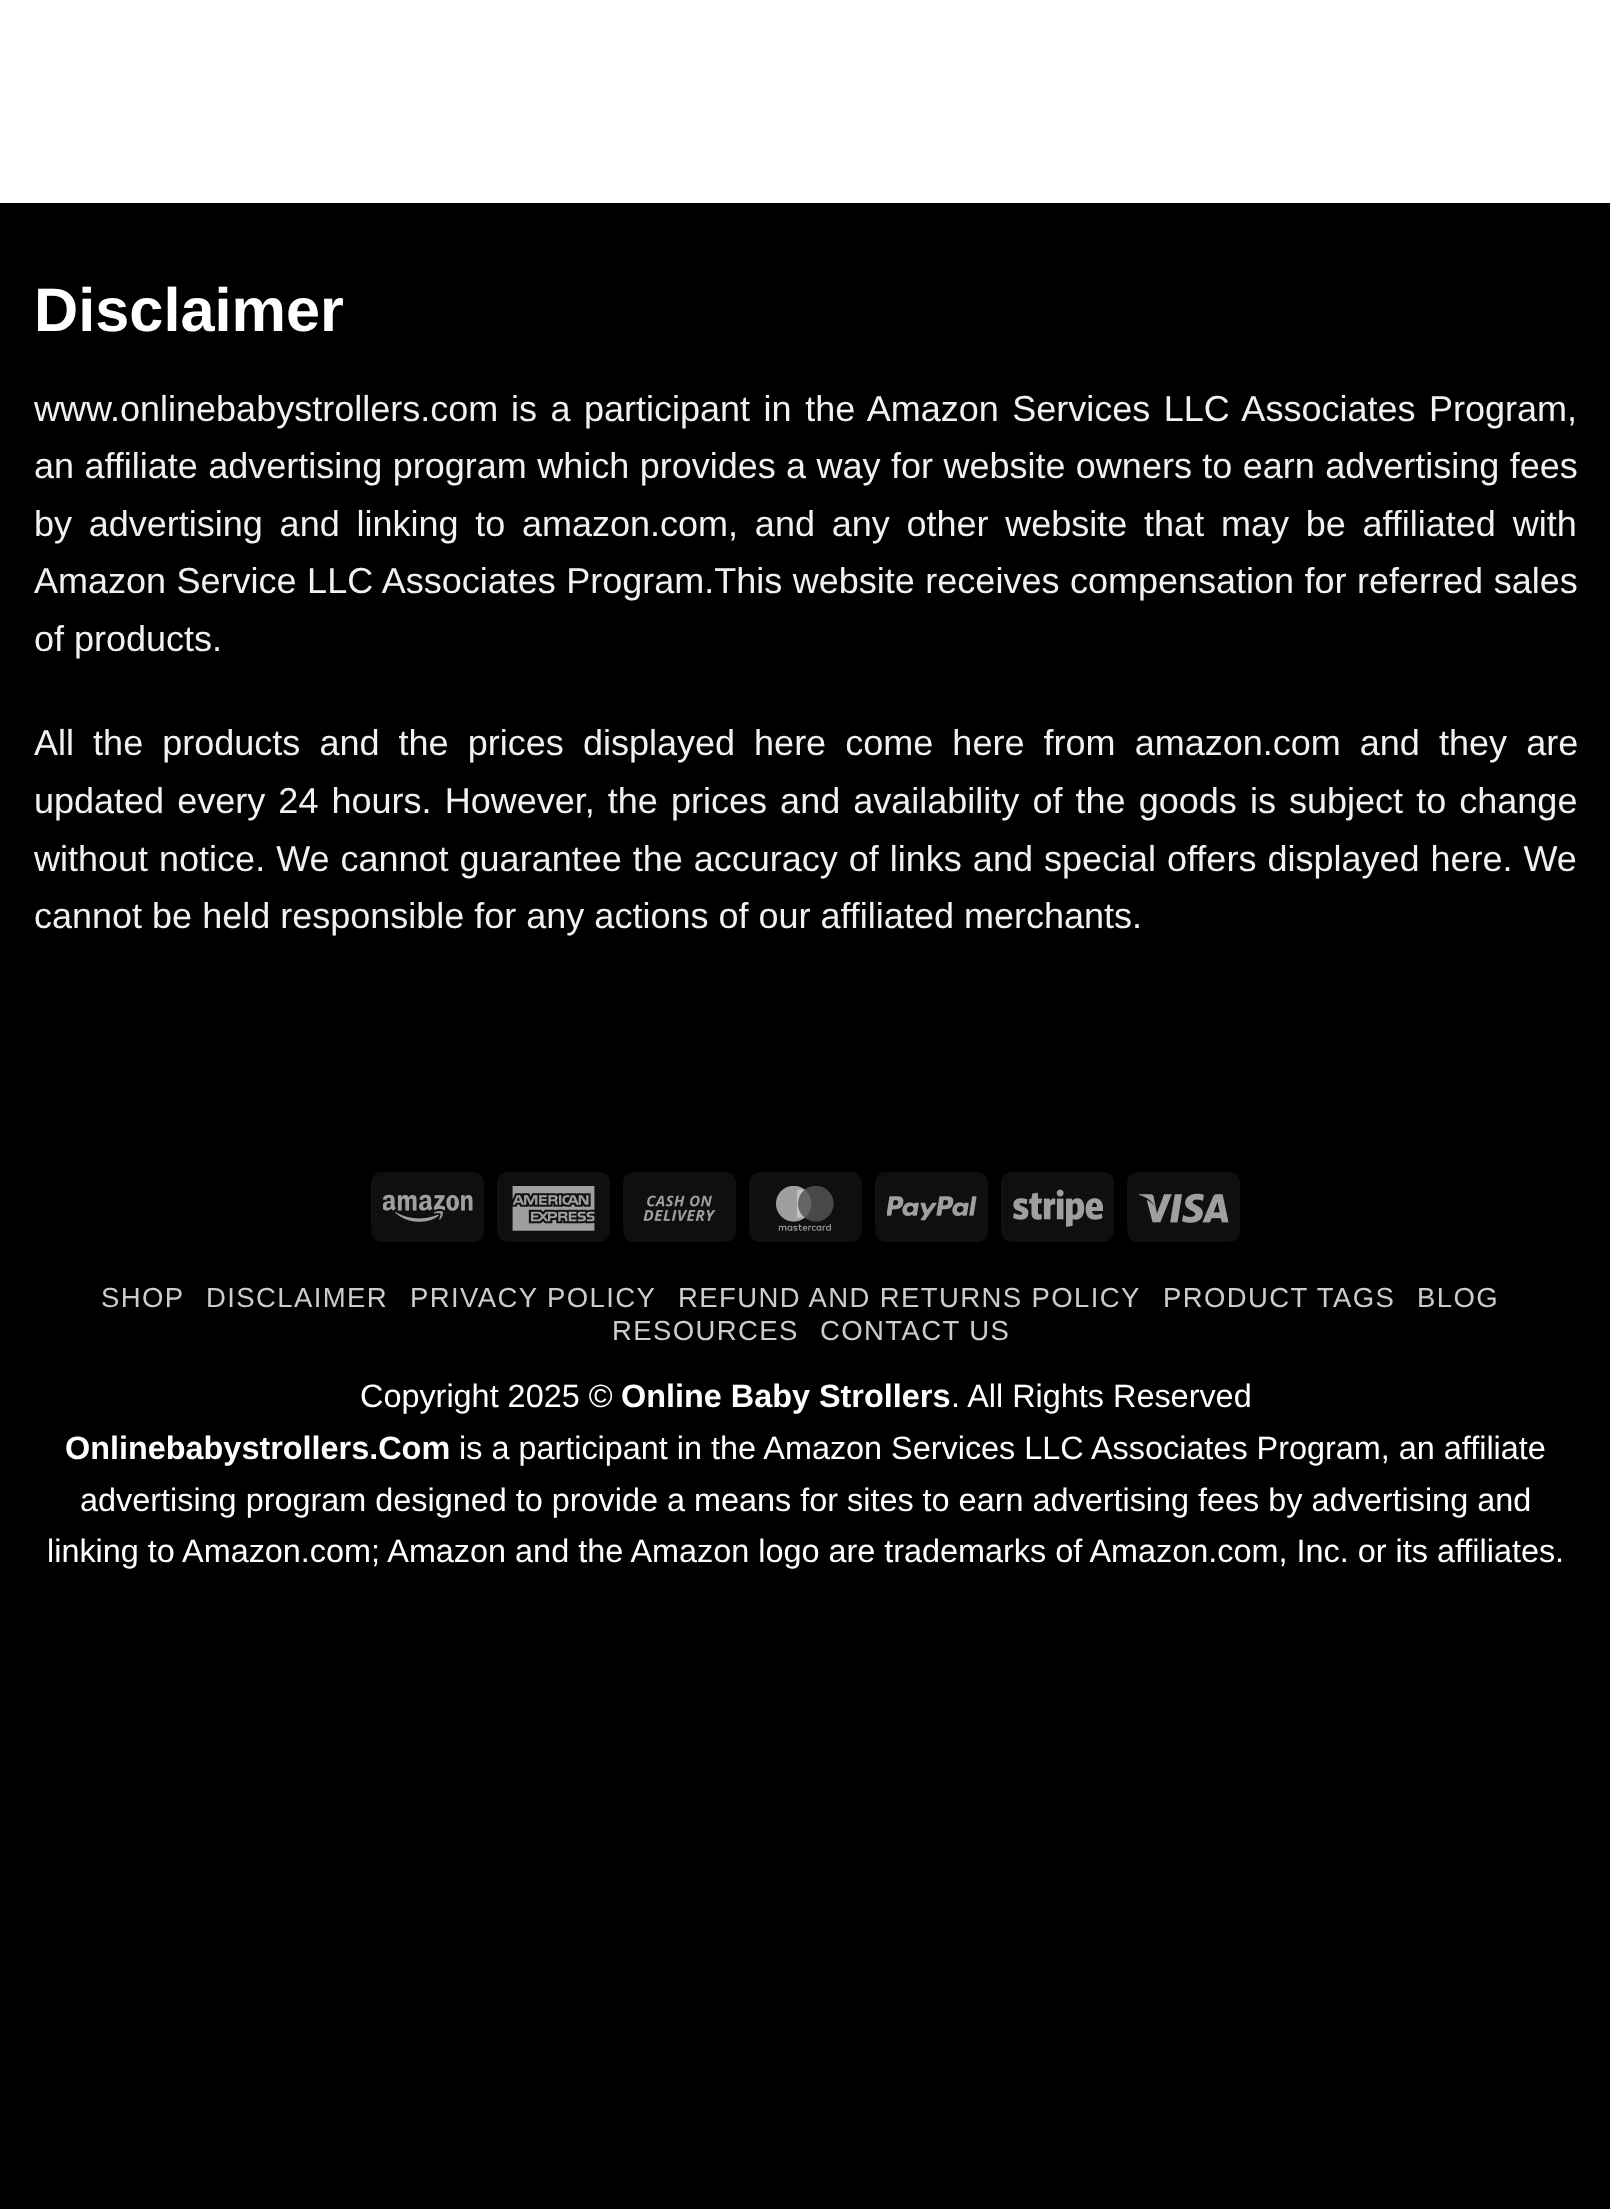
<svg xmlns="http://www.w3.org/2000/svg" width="1610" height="2209">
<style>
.a{font:bold 61.25px Liberation Sans;fill:#fff}
.b{font:36px Liberation Sans;fill:#f1f1f1}
.c{font:27.5px Liberation Sans;letter-spacing:1.4px;fill:#ccc}
.d{font:32.4px Liberation Sans;fill:#fff}
.e{font:bold 32.4px Liberation Sans;fill:#fff}
</style>
<rect width="100%" height="100%" fill="#000"/>
<path fill="#fff" d="M0 0h1610v203H0z"/>
<rect fill="#0f0f0f" x="371" y="1172" width="113" height="70" rx="11"/>
<image href="1.png" x="383" y="1194" width="90" height="28"/>
<rect fill="#0f0f0f" x="497" y="1172" width="113" height="70" rx="11"/>
<image href="2.png" x="512" y="1186" width="83" height="45"/>
<rect fill="#0f0f0f" x="623" y="1172" width="113" height="70" rx="11"/>
<image href="3.png" x="643" y="1195" width="73" height="26"/>
<rect fill="#0f0f0f" x="749" y="1172" width="113" height="70" rx="11"/>
<image href="4.png" x="776" y="1186" width="58" height="45"/>
<rect fill="#0f0f0f" x="875" y="1172" width="113" height="70" rx="11"/>
<image href="5.png" x="887" y="1196" width="90" height="25"/>
<rect fill="#0f0f0f" x="1001" y="1172" width="113" height="70" rx="11"/>
<image href="6.png" x="1013" y="1189" width="90" height="38"/>
<rect fill="#0f0f0f" x="1127" y="1172" width="113" height="70" rx="11"/>
<image href="7.png" x="1139" y="1193" width="90" height="30"/>
<text class="a" x="34" y="331">Disclaimer</text>
<text class="b" x="34" y="421">www.onlinebabystrollers.com</text>
<text class="b" x="511" y="421" word-spacing="3.5">is a participant in the Amazon Services LLC Associates Program,</text>
<text class="b" x="34" y="478" word-spacing="0.4">an affiliate advertising program which provides a way for website owners to earn advertising fees</text>
<text class="b" x="34" y="536" word-spacing="6.75">by advertising and linking to amazon.com, and any other website that may be affiliated with</text>
<text class="b" x="34" y="593" word-spacing="0.5">Amazon Service LLC Associates Program.This website receives compensation for referred sales</text>
<text class="b" x="34" y="651">of products.</text>
<text class="b" x="34" y="755" word-spacing="9.1">All the products and the prices displayed here come here from amazon.com and they are</text>
<text class="b" x="34" y="813" word-spacing="3.1">updated every 24 hours. However, the prices and availability of the goods is subject to change</text>
<text class="b" x="34" y="871" word-spacing="1">without notice. We cannot guarantee the accuracy of links and special offers displayed here. We</text>
<text class="b" x="34" y="928">cannot be held responsible for any actions of our affiliated merchants.</text>
<text class="c" x="101" y="1307">SHOP</text>
<text class="c" x="206" y="1307">DISCLAIMER</text>
<text class="c" x="410" y="1307">PRIVACY POLICY</text>
<text class="c" x="678" y="1307">REFUND AND RETURNS POLICY</text>
<text class="c" x="1163" y="1307">PRODUCT TAGS</text>
<text class="c" x="1417" y="1307">BLOG</text>
<text class="c" x="612" y="1340">RESOURCES</text>
<text class="c" x="820" y="1340">CONTACT US</text>
<text class="d" x="360" y="1407">Copyright 2025 ©</text>
<text class="e" x="621" y="1407">Online Baby Strollers</text>
<text class="d" x="951" y="1407">. All Rights Reserved</text>
<text class="e" x="65" y="1459">Onlinebabystrollers.Com</text>
<text class="d" x="459" y="1459">is a participant in the Amazon Services LLC Associates Program, an affiliate</text>
<text class="d" x="80" y="1511">advertising program designed to provide a means for sites to earn advertising fees by advertising and</text>
<text class="d" x="47" y="1562">linking to Amazon.com; Amazon and the Amazon logo are trademarks of Amazon.com, Inc. or its affiliates.</text>
</svg>
